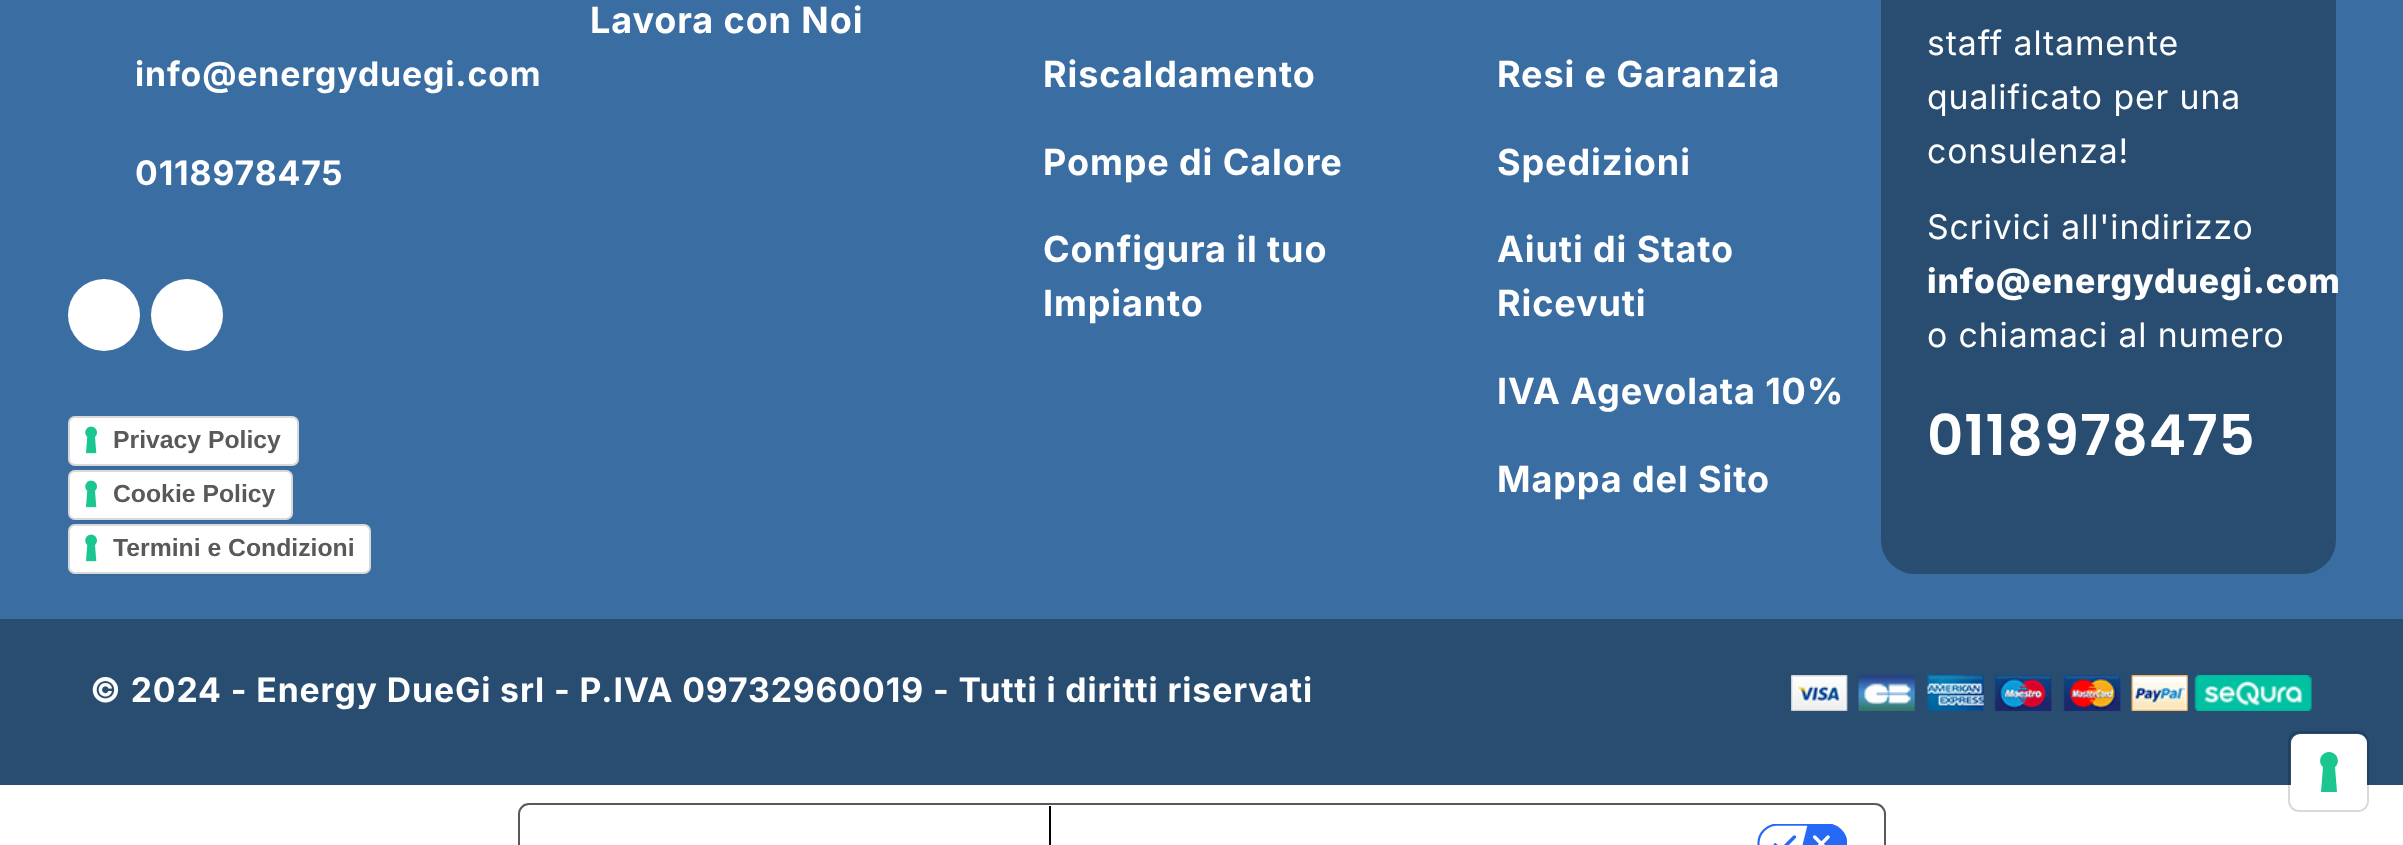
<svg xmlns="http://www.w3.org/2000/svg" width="2403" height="845">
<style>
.a{font:bold 36px Inter;letter-spacing:0.9px;fill:#fff}
.b{font:bold 33.75px Inter;letter-spacing:0.9px;fill:#fff}
.c{font:bold 24.75px Liberation Sans;fill:#595959}
.d{font:33.75px Inter;letter-spacing:0.9px;fill:#fff}
.e{font:800 33.75px Inter;letter-spacing:0.9px;fill:#fff}
.f{font:600 56.25px Poppins;letter-spacing:0.9px;fill:#fff}
</style>
<rect width="100%" height="100%" fill="#fff"/>
<path fill="#3a6ea2" d="M0 0h2403v619H0z"/>
<circle fill="#fff" cx="104" cy="315" r="36"/>
<circle fill="#fff" cx="187" cy="315" r="36"/>
<rect fill="#00000026" filter="blur(1px)" x="70" y="421" width="227" height="45" rx="5"/>
<rect fill="#fff" x="68" y="416" width="231" height="50" rx="7"/>
<image href="1.png" x="85" y="426" width="12" height="28"/>
<rect fill="none" stroke="#00000026" stroke-width="2" x="69" y="417" width="229" height="48" rx="6"/>
<rect fill="#00000026" filter="blur(1px)" x="70" y="475" width="220" height="45" rx="5"/>
<rect fill="#fff" x="68" y="470" width="225" height="50" rx="7"/>
<image href="1.png" x="85" y="480" width="12" height="28"/>
<rect fill="none" stroke="#00000026" stroke-width="2" x="69" y="471" width="223" height="48" rx="6"/>
<rect fill="#00000026" filter="blur(1px)" x="70" y="529" width="299" height="45" rx="5"/>
<rect fill="#fff" x="68" y="524" width="303" height="50" rx="7"/>
<image href="1.png" x="85" y="534" width="12" height="28"/>
<rect fill="none" stroke="#00000026" stroke-width="2" x="69" y="525" width="301" height="48" rx="6"/>
<rect fill="#284d71" x="1881" y="-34" width="455" height="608" rx="34"/>
<path fill="#284d71" d="M0 619h2403v166H0z"/>
<image href="2.png" x="1791" y="675" width="521" height="36"/>
<rect fill="none" stroke="#00000026" stroke-width="2" x="2289" y="732" width="79" height="79" rx="10"/>
<rect fill="#fff" x="2291" y="734" width="76" height="76" rx="9"/>
<path fill="#1cc691" fill-rule="evenodd" d="M2329 752c8 0 12 10 6 15l2 25h-16l2-25c-6-5-2-15 6-15z"/>
<rect fill="none" stroke="#595959" stroke-width="2" x="519" y="804" width="1366" height="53" rx="10"/>
<path fill="#000" d="M1049 806h2v39H1049z"/>
<image href="3.png" x="1757" y="824" width="90" height="21"/>
<text class="a" x="590" y="33">Lavora con Noi</text>
<text class="b" x="135" y="86">info@energyduegi.com</text>
<text class="b" x="135" y="185">0118978475</text>
<text class="c" x="113" y="448">Privacy Policy</text>
<text class="c" x="113" y="502">Cookie Policy</text>
<text class="c" x="113" y="556">Termini e Condizioni</text>
<text class="a" x="1043" y="87">Riscaldamento</text>
<text class="a" x="1043" y="175">Pompe di Calore</text>
<text class="a" x="1043" y="262">Configura il tuo</text>
<text class="a" x="1043" y="316">Impianto</text>
<text class="a" x="1497" y="87">Resi e Garanzia</text>
<text class="a" x="1497" y="175">Spedizioni</text>
<text class="a" x="1497" y="262">Aiuti di Stato</text>
<text class="a" x="1497" y="316">Ricevuti</text>
<text class="a" x="1497" y="404">IVA Agevolata 10%</text>
<text class="a" x="1497" y="492">Mappa del Sito</text>
<text class="d" x="1927" y="55">staff altamente</text>
<text class="d" x="1927" y="109">qualificato per una</text>
<text class="d" x="1927" y="163">consulenza!</text>
<text class="d" x="1927" y="239">Scrivici all'indirizzo</text>
<text class="e" x="1927" y="293">info@energyduegi.com</text>
<text class="d" x="1927" y="347">o chiamaci al numero</text>
<text class="f" x="1927" y="455">0118978475</text>
<text class="b" x="90" y="702">© 2024 - Energy DueGi srl - P.IVA 09732960019 - Tutti i diritti riservati</text>
</svg>
